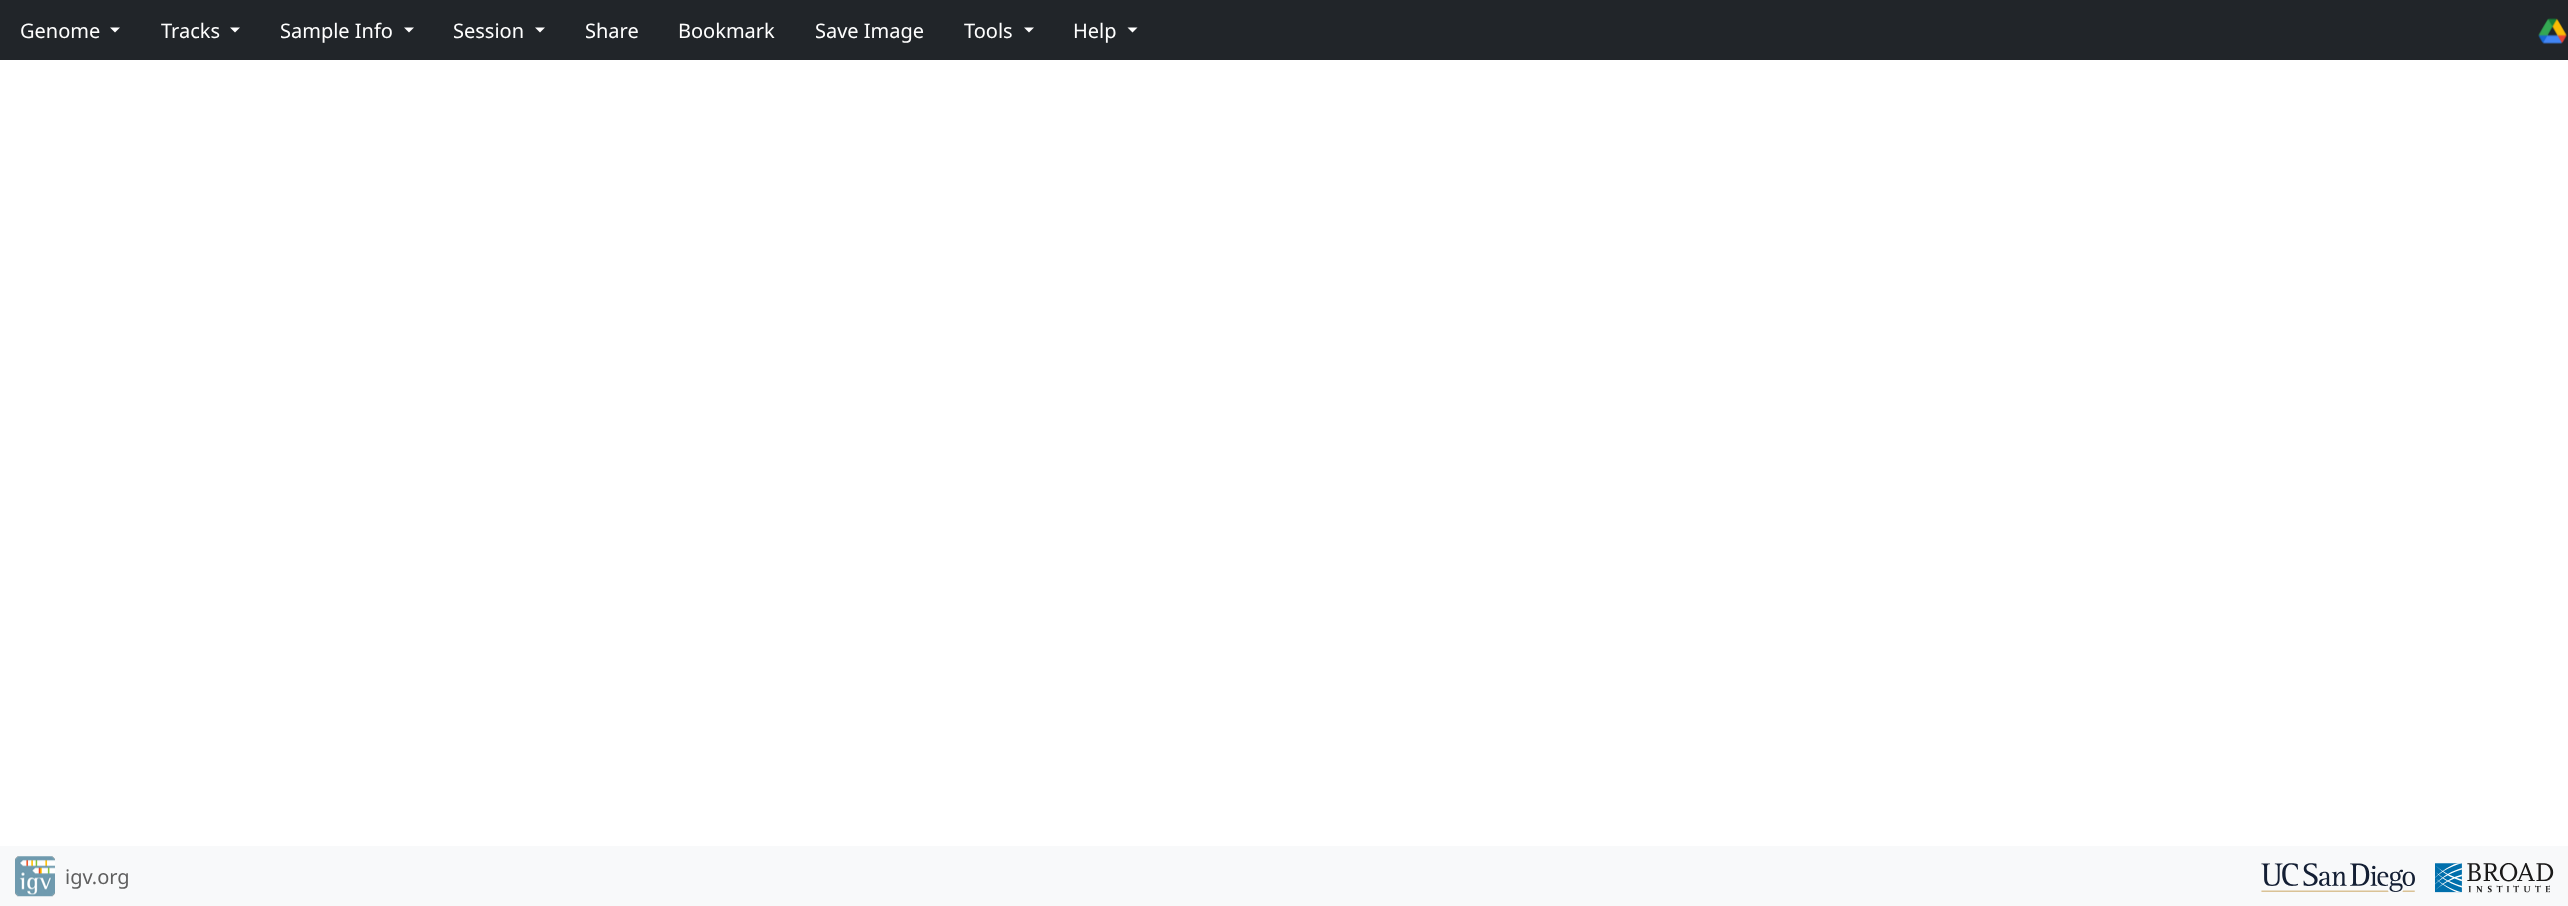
<svg xmlns="http://www.w3.org/2000/svg" width="2568" height="906">
<style>
.a{font:20px Noto Sans;fill:#fff}
.b{font:20px Noto Sans;fill:#5f5f5f}
</style>
<rect width="100%" height="100%" fill="#fff"/>
<path fill="#212529" d="M0 0h2568v60H0z"/>
<path fill="#fff" d="M110 27.5h10l-5 5z"/>
<path fill="#fff" d="M230 27.5h10l-5 5z"/>
<path fill="#fff" d="M404 27.5h10l-5 5z"/>
<path fill="#fff" d="M535 27.5h10l-5 5z"/>
<path fill="#fff" d="M1024 27.5h10l-5 5z"/>
<path fill="#fff" d="M1127.5 27.5h10l-5 5z"/>
<image href="1.png" x="2538" y="18" width="29" height="26"/>
<path fill="#f8f9fa" d="M0 846h2568v60H0z"/>
<image href="2.png" x="15" y="856" width="40" height="41"/>
<image href="3.png" x="2261" y="863" width="154" height="29"/>
<image href="4.png" x="2435" y="863" width="119" height="30"/>
<text class="a" x="20" y="38">Genome</text>
<text class="a" x="161" y="38">Tracks</text>
<text class="a" x="280" y="38">Sample Info</text>
<text class="a" x="453" y="38">Session</text>
<text class="a" x="585" y="38">Share</text>
<text class="a" x="678" y="38">Bookmark</text>
<text class="a" x="815" y="38">Save Image</text>
<text class="a" x="964" y="38">Tools</text>
<text class="a" x="1073" y="38">Help</text>
<text class="b" x="65" y="884">igv.org</text>
</svg>
